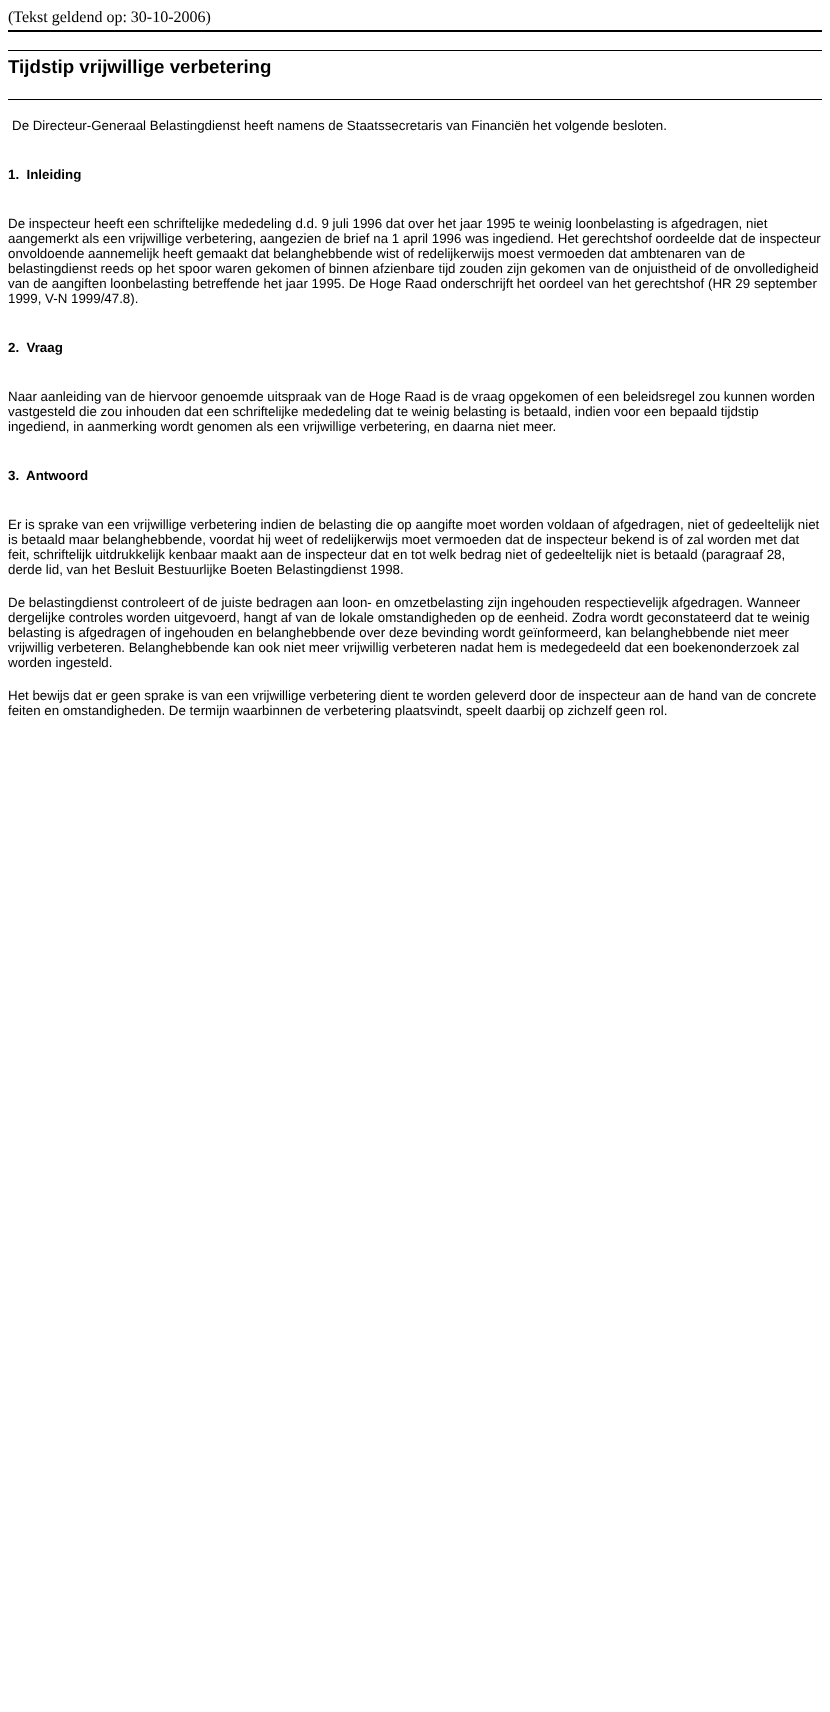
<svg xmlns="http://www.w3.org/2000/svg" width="830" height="1712">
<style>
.a{font:16px Liberation Serif;fill:#000}
.b{font:bold 18.7px Liberation Sans;fill:#000}
.c{font:13.33px Liberation Sans;fill:#000}
.d{font:bold 13.33px Liberation Sans;fill:#000}
</style>
<rect width="100%" height="100%" fill="#fff"/>
<path fill="#000" d="M8 30h814v2H8z"/>
<path fill="#000" d="M8 50h814v1H8z"/>
<path fill="#000" d="M8 99h814v1H8z"/>
<text class="a" x="8" y="22">(Tekst geldend op: 30-10-2006)</text>
<text class="b" x="8" y="73">Tijdstip vrijwillige verbetering</text>
<text class="c" x="12" y="130">De Directeur-Generaal Belastingdienst heeft namens de Staatssecretaris van Financiën het volgende besloten.</text>
<text class="d" xml:space="preserve" x="8" y="179">1.  Inleiding</text>
<text class="c" x="8" y="228">De inspecteur heeft een schriftelijke mededeling d.d. 9 juli 1996 dat over het jaar 1995 te weinig loonbelasting is afgedragen, niet</text>
<text class="c" x="8" y="243">aangemerkt als een vrijwillige verbetering, aangezien de brief na 1 april 1996 was ingediend. Het gerechtshof oordeelde dat de inspecteur</text>
<text class="c" x="8" y="258">onvoldoende aannemelijk heeft gemaakt dat belanghebbende wist of redelijkerwijs moest vermoeden dat ambtenaren van de</text>
<text class="c" x="8" y="273">belastingdienst reeds op het spoor waren gekomen of binnen afzienbare tijd zouden zijn gekomen van de onjuistheid of de onvolledigheid</text>
<text class="c" x="8" y="288">van de aangiften loonbelasting betreffende het jaar 1995. De Hoge Raad onderschrijft het oordeel van het gerechtshof (HR 29 september</text>
<text class="c" x="8" y="303">1999, V-N 1999/47.8).</text>
<text class="d" xml:space="preserve" x="8" y="352">2.  Vraag</text>
<text class="c" x="8" y="401">Naar aanleiding van de hiervoor genoemde uitspraak van de Hoge Raad is de vraag opgekomen of een beleidsregel zou kunnen worden</text>
<text class="c" x="8" y="416">vastgesteld die zou inhouden dat een schriftelijke mededeling dat te weinig belasting is betaald, indien voor een bepaald tijdstip</text>
<text class="c" x="8" y="431">ingediend, in aanmerking wordt genomen als een vrijwillige verbetering, en daarna niet meer.</text>
<text class="d" xml:space="preserve" x="8" y="480">3.  Antwoord</text>
<text class="c" x="8" y="529">Er is sprake van een vrijwillige verbetering indien de belasting die op aangifte moet worden voldaan of afgedragen, niet of gedeeltelijk niet</text>
<text class="c" x="8" y="544">is betaald maar belanghebbende, voordat hij weet of redelijkerwijs moet vermoeden dat de inspecteur bekend is of zal worden met dat</text>
<text class="c" x="8" y="559">feit, schriftelijk uitdrukkelijk kenbaar maakt aan de inspecteur dat en tot welk bedrag niet of gedeeltelijk niet is betaald (paragraaf 28,</text>
<text class="c" x="8" y="574">derde lid, van het Besluit Bestuurlijke Boeten Belastingdienst 1998.</text>
<text class="c" x="8" y="607">De belastingdienst controleert of de juiste bedragen aan loon- en omzetbelasting zijn ingehouden respectievelijk afgedragen. Wanneer</text>
<text class="c" x="8" y="622">dergelijke controles worden uitgevoerd, hangt af van de lokale omstandigheden op de eenheid. Zodra wordt geconstateerd dat te weinig</text>
<text class="c" x="8" y="637">belasting is afgedragen of ingehouden en belanghebbende over deze bevinding wordt geïnformeerd, kan belanghebbende niet meer</text>
<text class="c" x="8" y="652">vrijwillig verbeteren. Belanghebbende kan ook niet meer vrijwillig verbeteren nadat hem is medegedeeld dat een boekenonderzoek zal</text>
<text class="c" x="8" y="667">worden ingesteld.</text>
<text class="c" x="8" y="700">Het bewijs dat er geen sprake is van een vrijwillige verbetering dient te worden geleverd door de inspecteur aan de hand van de concrete</text>
<text class="c" x="8" y="715">feiten en omstandigheden. De termijn waarbinnen de verbetering plaatsvindt, speelt daarbij op zichzelf geen rol.</text>
</svg>
